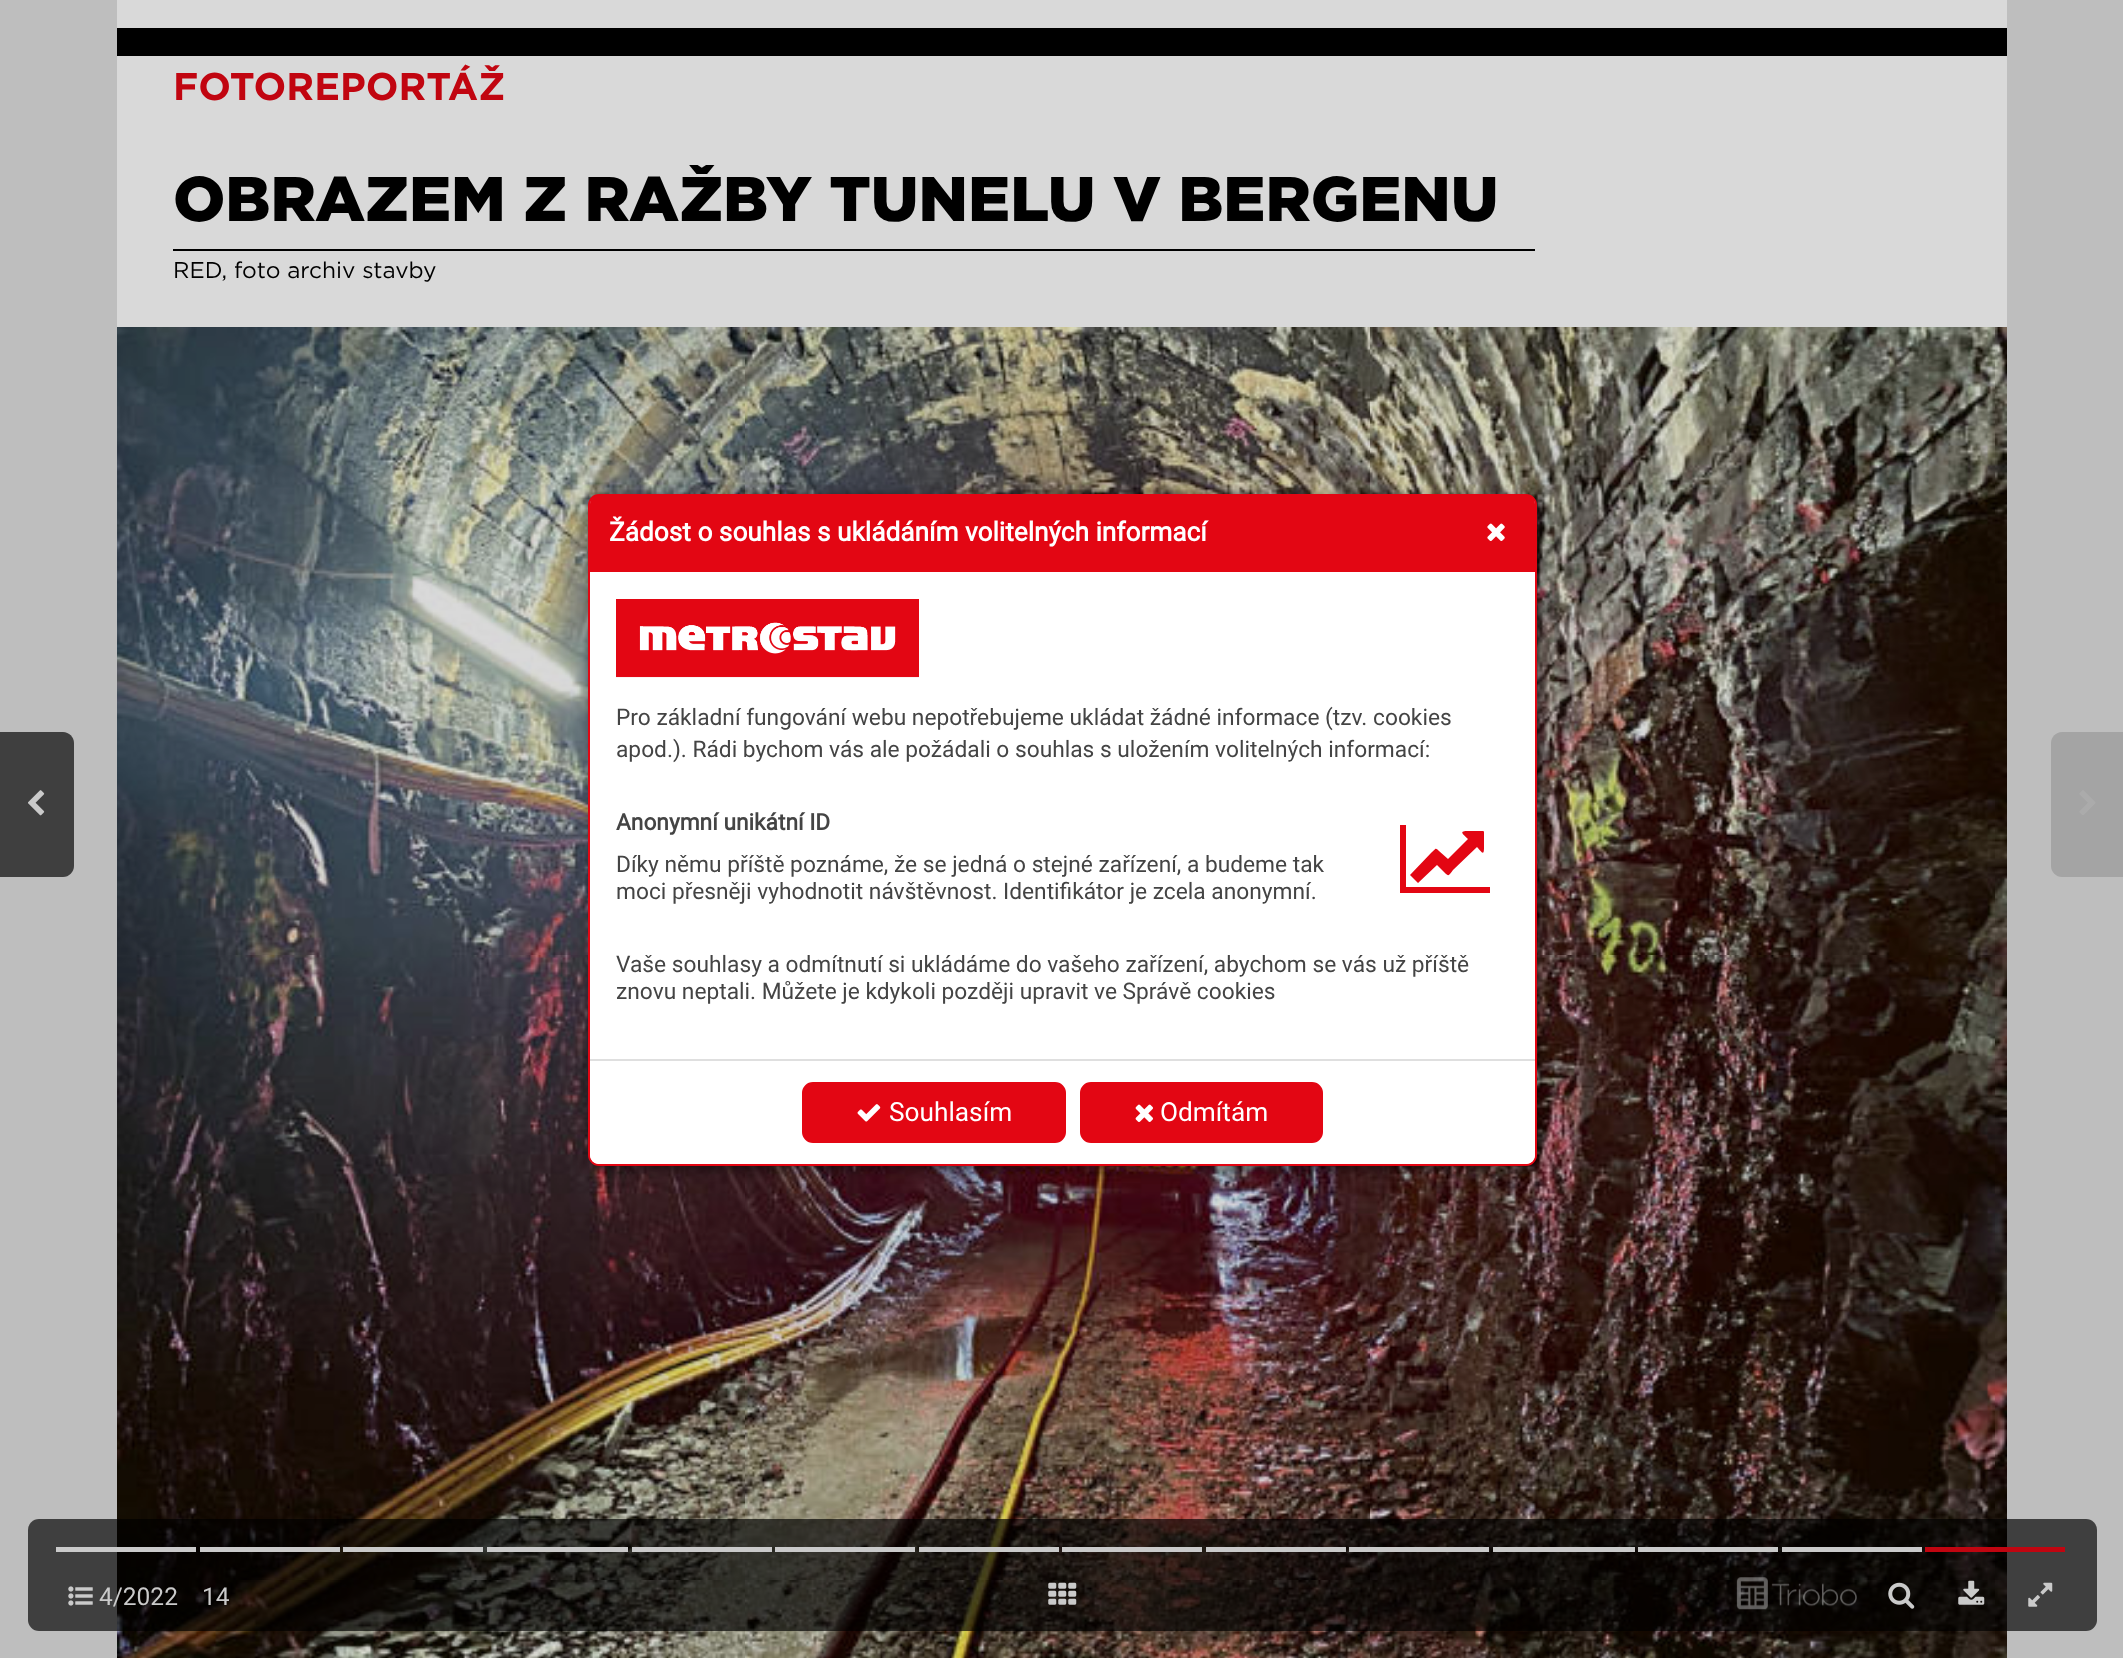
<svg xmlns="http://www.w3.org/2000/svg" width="2123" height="1658">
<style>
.a{font:bold 38.5px Gotham;fill:#c10510}
.b{font:900 63px Gotham;fill:#000}
.c{font:22.75px Gotham;fill:#000}
.d{font:24.5px Roboto;fill:#cacaca}
.e{font:bold 26.25px Roboto;fill:#fff}
.f{font:22.75px Roboto;fill:#444}
.g{font:bold 22.75px Roboto;fill:#444}
.h{font:26.25px Roboto;fill:#fff}
</style>
<defs>
<clipPath id="clip1"><path d="M173 165h1362v120H173z"/></clipPath>
</defs>
<rect width="100%" height="100%" fill="#bebebe"/>
<path fill="#d9d9d9" d="M117 0h1890v327H117z"/>
<path fill="#000" d="M117 28h1890v28H117z"/>
<path fill="#000" d="M173 249h1362v2H173z"/>
<image href="1.png" x="117" y="327" width="1890" height="1331"/>
<path fill="#3f3f3f" d="M0 732h63c6 0 11 5 11 11v123c0 6-5 11-11 11h-63z"/>
<image href="2.png" x="28" y="790" width="17" height="26"/>
<path fill="#a4a4a4" d="M2062 732h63v145h-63c-6 0-11-5-11-11v-123c0-6 5-11 11-11z"/>
<image href="3.png" x="2079" y="790" width="17" height="25"/>
<rect fill="#000000ab" x="28" y="1519" width="2069" height="112" rx="11"/>
<path fill="#cacaca" d="M56 1547h140v5H56z"/>
<path fill="#cacaca" d="M200 1547h140v5H200z"/>
<path fill="#cacaca" d="M343 1547h140v5H343z"/>
<path fill="#cacaca" d="M487 1547h141v5H487z"/>
<path fill="#cacaca" d="M632 1547h140v5H632z"/>
<path fill="#cacaca" d="M775 1547h140v5H775z"/>
<path fill="#cacaca" d="M919 1547h140v5H919z"/>
<path fill="#cacaca" d="M1062 1547h140v5H1062z"/>
<path fill="#cacaca" d="M1206 1547h140v5H1206z"/>
<path fill="#cacaca" d="M1349 1547h140v5H1349z"/>
<path fill="#cacaca" d="M1493 1547h142v5H1493z"/>
<path fill="#cacaca" d="M1638 1547h140v5H1638z"/>
<path fill="#cacaca" d="M1782 1547h140v5H1782z"/>
<path fill="#c10510" d="M1925 1547h140v5H1925z"/>
<image href="4.png" x="68" y="1586" width="25" height="20"/>
<image href="5.png" x="1048" y="1582" width="29" height="23"/>
<image href="6.png" x="1736" y="1577" width="121" height="33"/>
<image href="7.png" x="1888" y="1582" width="27" height="27"/>
<image href="8.png" x="1958" y="1580" width="27" height="25"/>
<image href="9.png" x="2028" y="1582" width="25" height="25"/>
<rect fill="#00000087" filter="blur(6.5px)" x="592" y="497" width="948" height="672" rx="11"/>
<rect fill="#fff" stroke="#e30613" stroke-width="2" x="589" y="495" width="947" height="670" rx="10"/>
<path fill="#e30613" d="M599 495h927c5 0 9 4 9 9v68h-945v-68c0-5 4-9 9-9z"/>
<image href="10.png" x="1487" y="523" width="18" height="18"/>
<image href="11.png" x="616" y="599" width="303" height="79"/>
<path fill="#e30613" d="M1490 887v6h-90v-68h6v62zm-6-55v16c0 9-3 3-7-1l-24 23c-4 5-4 7-8 3l-8-8l-19 18l-8-8l21-22c5-4 4-6 8-2l9 8l20-20c-4-4-10-8-1-8h16c1 0 1 1 1 1z"/>
<path fill="#fff" d="M590 1059h945v96c0 5-4 9-9 9h-927c-5 0-9-4-9-9z"/>
<path fill="#dfdfdf" d="M590 1059h945v2H590z"/>
<rect fill="#e30613" stroke="#e30613" stroke-width="2" x="803" y="1083" width="262" height="59" rx="10"/>
<image href="12.png" x="857" y="1104" width="24" height="18"/>
<rect fill="#e30613" stroke="#e30613" stroke-width="2" x="1081" y="1083" width="241" height="59" rx="10"/>
<image href="13.png" x="1135" y="1104" width="18" height="18"/>
<text class="a" x="173" y="100">FOTOREPORTÁŽ</text>
<g clip-path="url(#clip1)">
<text class="b" x="173" y="221">OBRAZEM Z RAŽBY TUNELU V BERGENU</text>
</g>
<text class="c" x="173" y="278">RED, foto archiv stavby</text>
<text class="d" x="99" y="1605">4/2022</text>
<text class="d" x="202" y="1605">14</text>
<text class="e" x="609" y="541">Žádost o souhlas s ukládáním volitelných informací</text>
<text class="f" x="616" y="725">Pro základní fungování webu nepotřebujeme ukládat žádné informace (tzv. cookies</text>
<text class="f" x="616" y="757">apod.). Rádi bychom vás ale požádali o souhlas s uložením volitelných informací:</text>
<text class="g" x="616" y="830">Anonymní unikátní ID</text>
<text class="f" x="616" y="872">Díky němu příště poznáme, že se jedná o stejné zařízení, a budeme tak</text>
<text class="f" x="616" y="899">moci přesněji vyhodnotit návštěvnost. Identifikátor je zcela anonymní.</text>
<text class="f" x="616" y="972">Vaše souhlasy a odmítnutí si ukládáme do vašeho zařízení, abychom se vás už příště</text>
<text class="f" x="616" y="999">znovu neptali. Můžete je kdykoli později upravit ve Správě cookies</text>
<text class="h" x="889" y="1121">Souhlasím</text>
<text class="h" x="1160" y="1121">Odmítám</text>
</svg>
